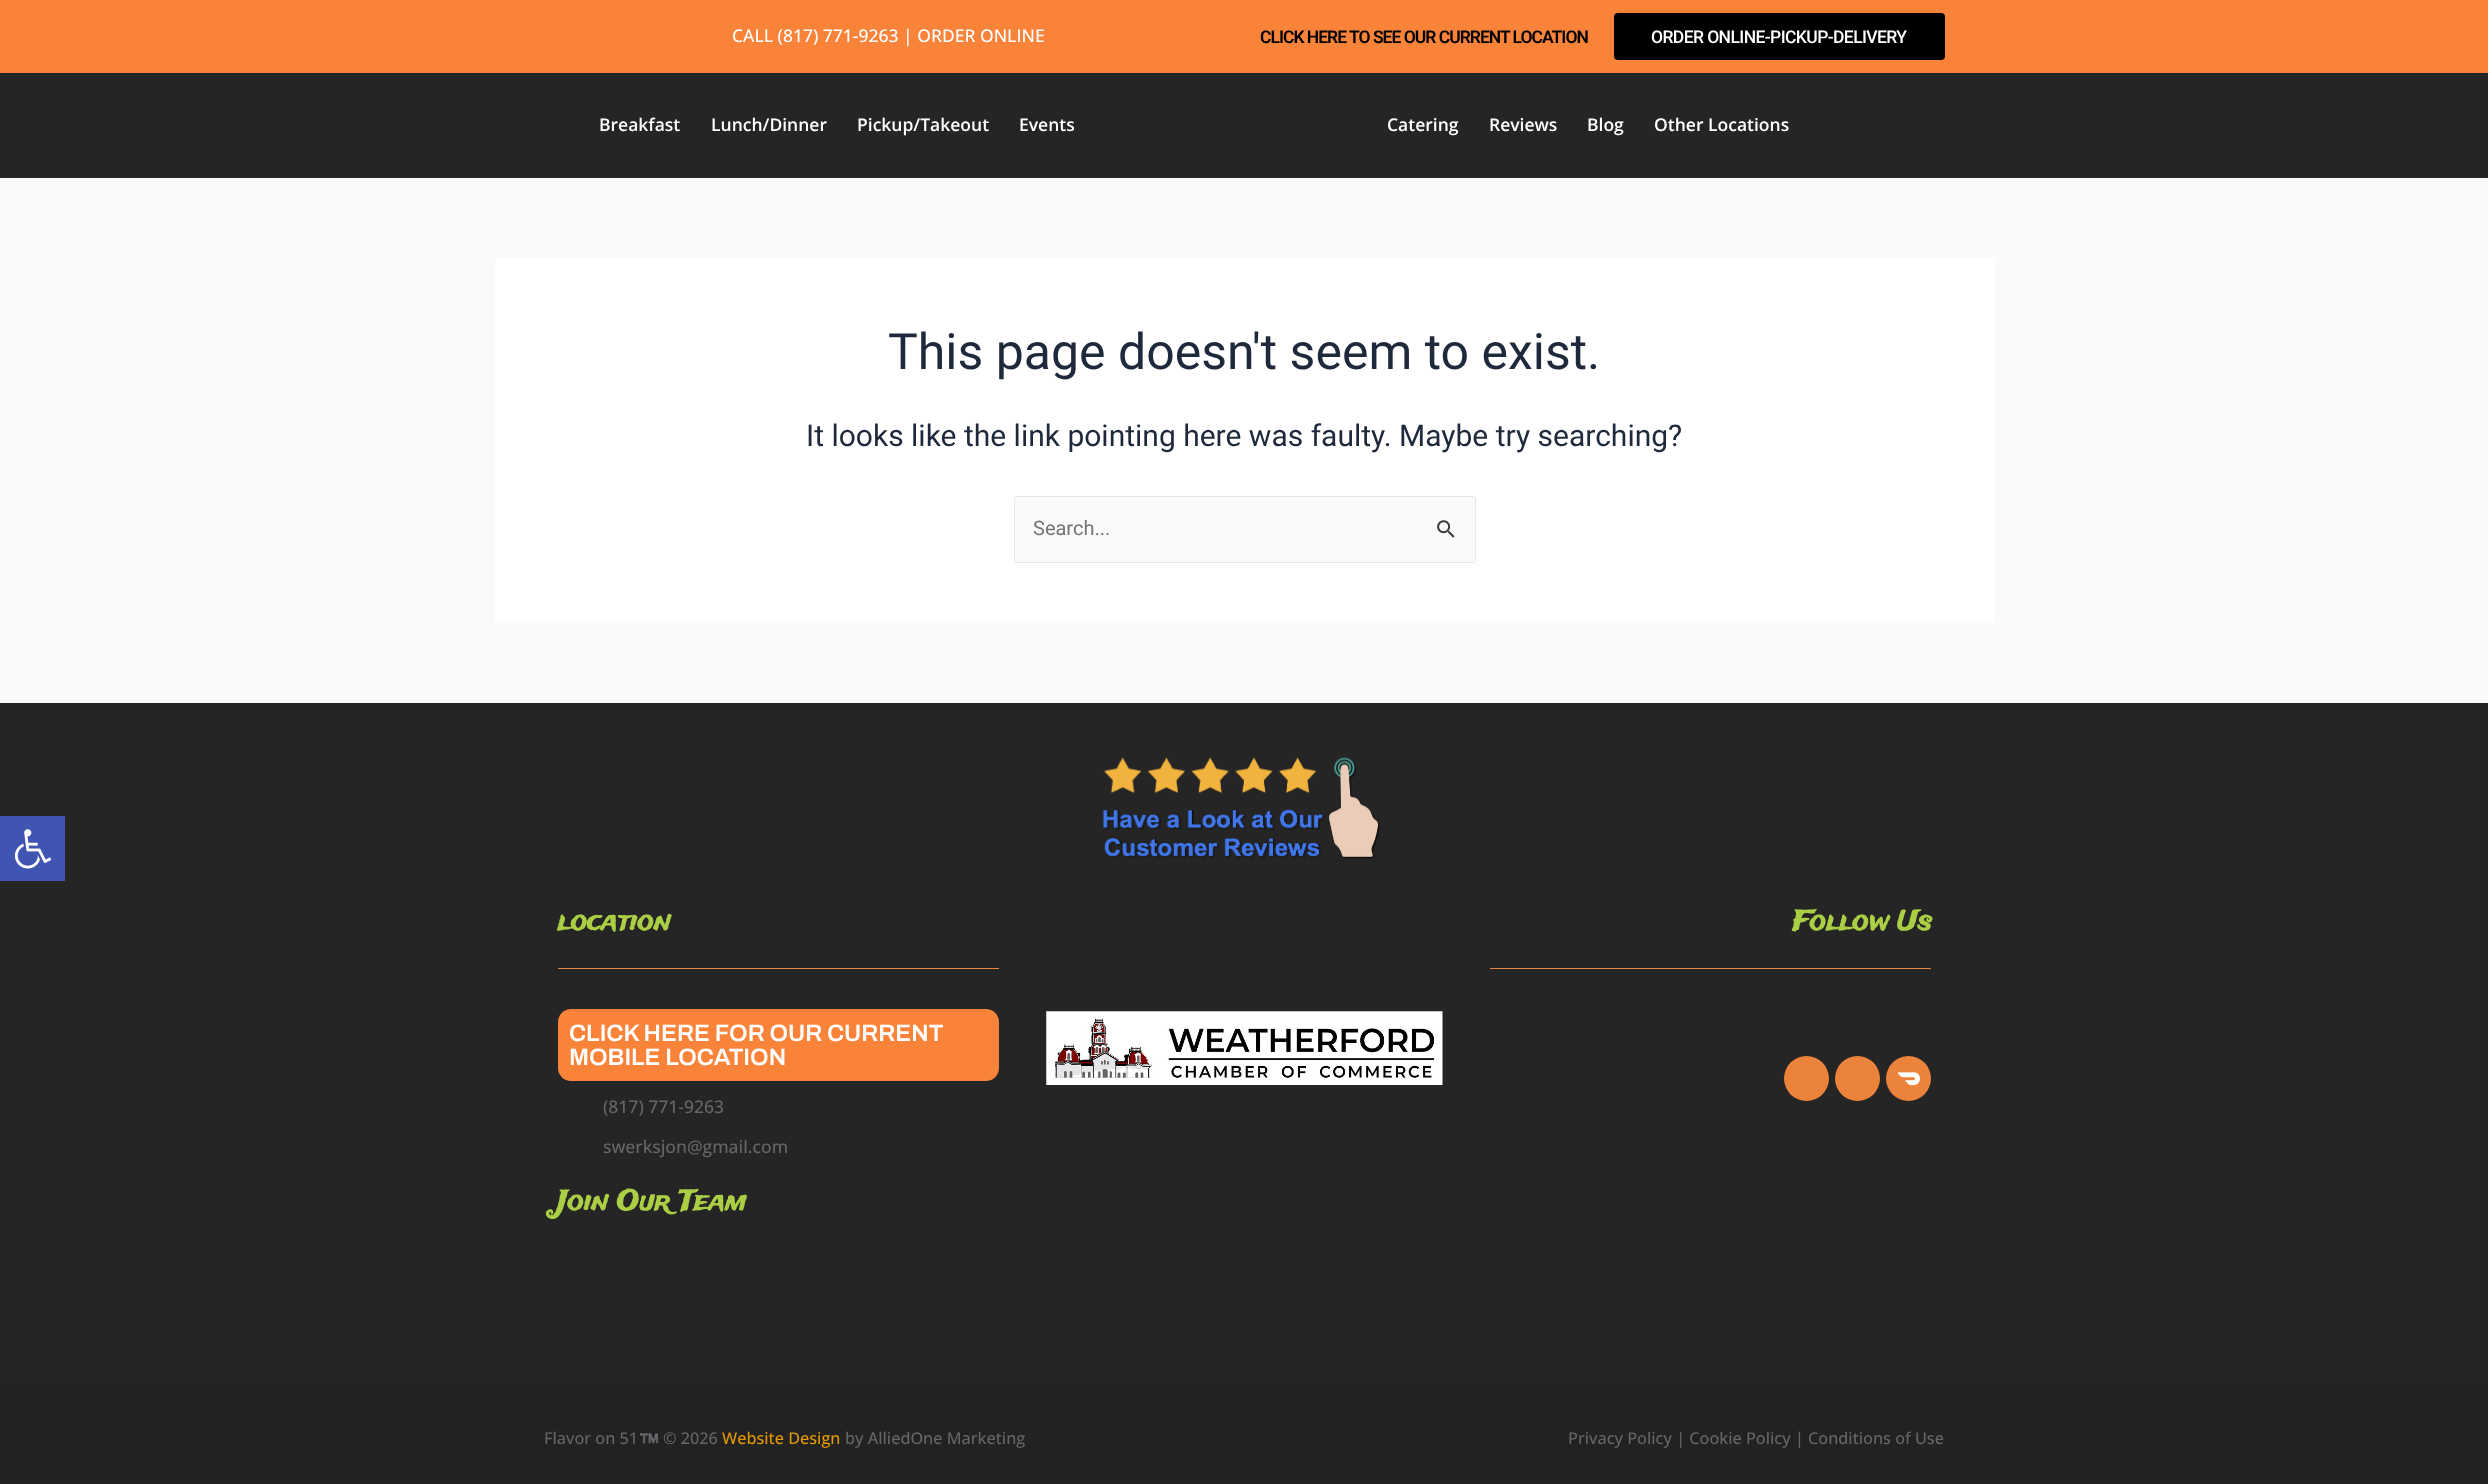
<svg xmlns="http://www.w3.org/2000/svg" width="2488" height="1484">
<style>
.a{font:500 17.5px Open Sans;fill:#fff}
.b{font:600 17.5px Roboto;letter-spacing:-1px;fill:#000}
.c{font:500 17.5px Roboto;letter-spacing:-0.6px;fill:#fff}
.d{font:600 17.5px Open Sans;fill:#fff}
.e{font:50px Roboto;fill:#1e293b}
.f{font:30px Roboto;fill:#1e293b}
.g{font:20px Roboto;fill:#757575}
.h{font:bold 27.5px Trade Winds;fill:#aace44}
.i{font:600 23.75px Archivo;fill:#fff}
.j{font:500 17.5px Open Sans;fill:#666}
.k{font:500 16.25px Open Sans;fill:#666}
.l{font:16.25px Noto Color Emoji;fill:#666}
.m{font:500 16.25px Open Sans;fill:#e09900}
</style>
<rect width="100%" height="100%" fill="#f9fafb"/>
<path fill="#252525" d="M0 703h2488v682H0z"/>
<path fill="#4054b2" d="M0 816h65v65H0z"/>
<image href="1.png" x="14" y="829" width="38" height="40"/>
<path fill="#fa833a" d="M0 0h2488v73H0z"/>
<rect fill="#000" x="1614" y="13" width="331" height="47" rx="4"/>
<path fill="#252525" d="M0 73h2488v105H0z"/>
<path fill="#fff" d="M495 258h1500v365H495z"/>
<rect fill="#fafafa" stroke="#e2e8f0" x="1014.5" y="496.5" width="461" height="66" rx="2"/>
<image href="2.png" x="1437" y="520" width="18" height="18"/>
<image href="3.png" x="1102" y="757" width="278" height="102"/>
<path fill="#ec833a" d="M558 968h441v1H558z"/>
<rect fill="#fa833a" x="558" y="1009" width="441" height="72" rx="13"/>
<image href="4.png" x="1046" y="1011" width="397" height="74"/>
<path fill="#ec833a" d="M1490 968h441v1H1490z"/>
<circle fill="#ec833a" cx="1806.5" cy="1078.5" r="22.5"/>
<circle fill="#ec833a" cx="1857.5" cy="1078.5" r="22.5"/>
<circle fill="#ec833a" cx="1908.5" cy="1078.5" r="22.5"/>
<image href="5.png" x="1898" y="1072" width="22" height="14"/>
<path fill="#222" d="M0 1385h2488v99H0z"/>
<text class="a" x="732" y="42">CALL (817) 771-9263 | ORDER ONLINE</text>
<text class="b" x="1260" y="43">CLICK HERE TO SEE OUR CURRENT LOCATION</text>
<text class="c" x="1651" y="43">ORDER ONLINE-PICKUP-DELIVERY</text>
<text class="d" x="599" y="131">Breakfast</text>
<text class="d" x="711" y="131">Lunch/Dinner</text>
<text class="d" x="857" y="131">Pickup/Takeout</text>
<text class="d" x="1019" y="131">Events</text>
<text class="d" x="1387" y="131">Catering</text>
<text class="d" x="1489" y="131">Reviews</text>
<text class="d" x="1587" y="131">Blog</text>
<text class="d" x="1654" y="131">Other Locations</text>
<text class="e" x="888" y="369">This page doesn't seem to exist.</text>
<text class="f" x="806" y="446">It looks like the link pointing here was faulty. Maybe try searching?</text>
<text class="g" x="1033" y="535">Search...</text>
<text class="h" x="557" y="930">location</text>
<text class="i" x="569" y="1041">CLICK HERE FOR OUR CURRENT</text>
<text class="i" x="569" y="1065">MOBILE LOCATION</text>
<text class="j" x="603" y="1113">(817) 771-9263</text>
<text class="j" x="603" y="1153">swerksjon@gmail.com</text>
<text class="h" x="557" y="1210">Join Our Team</text>
<text class="h" x="1792" y="930">Follow Us</text>
<text class="k" x="544" y="1444">Flavor on 51</text>
<text class="l" x="639" y="1444">™️</text>
<text class="k" x="663" y="1444">© 2026</text>
<text class="m" x="722" y="1444">Website Design</text>
<text class="k" x="845" y="1444">by AlliedOne Marketing</text>
<text class="k" x="1568" y="1444">Privacy Policy | Cookie Policy | Conditions of Use</text>
</svg>
